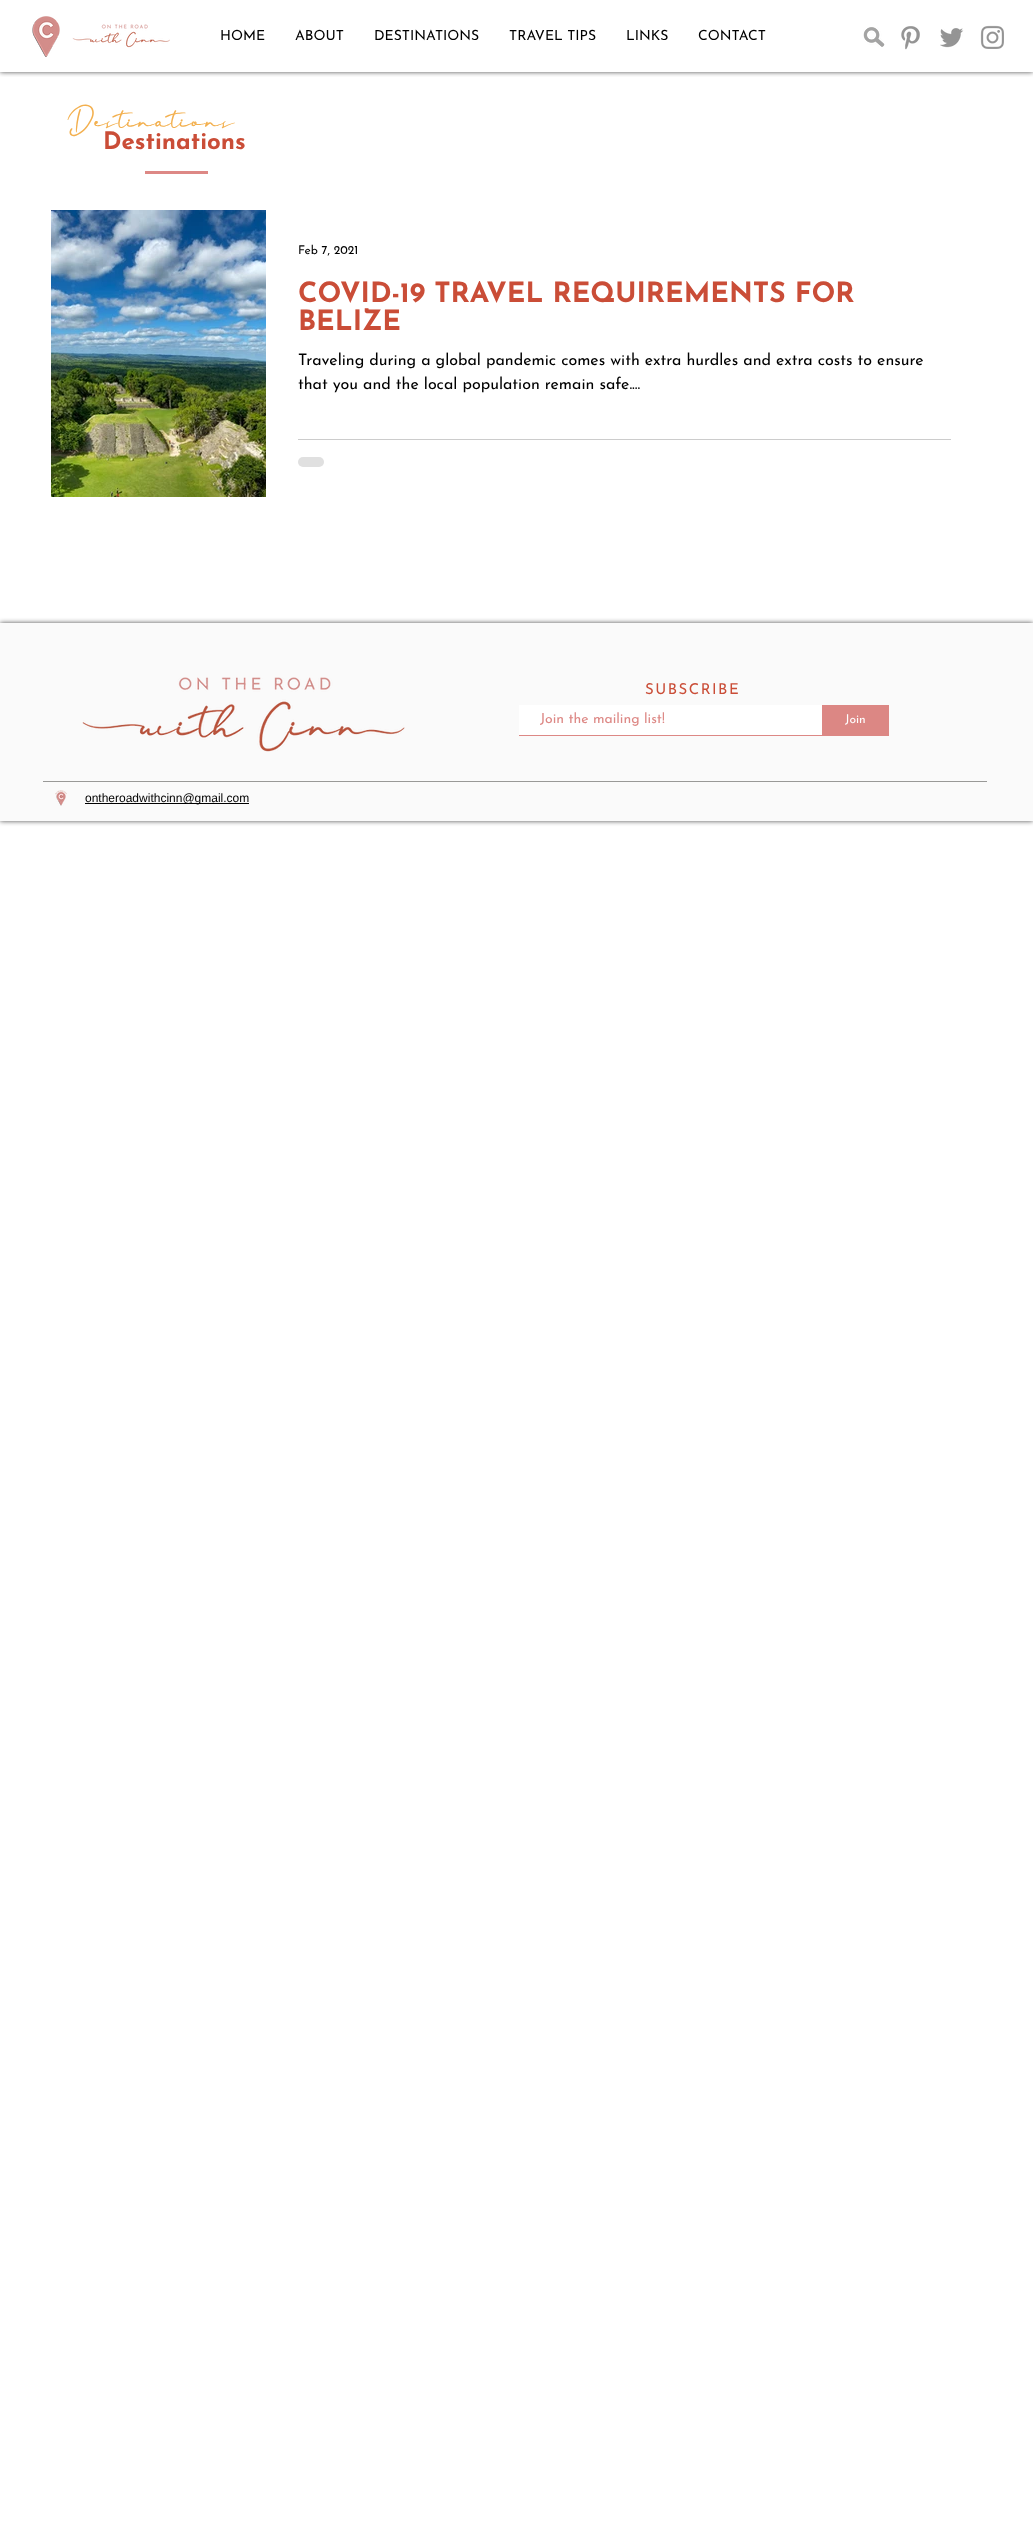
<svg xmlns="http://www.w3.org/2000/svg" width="1033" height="2545">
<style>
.a{font:14px Josefin Sans;fill:#000}
.b{font:12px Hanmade;fill:#f3b04f}
.c{font:bold 24px Josefin Sans;fill:#ca4d37}
.d{font:12px Josefin Sans;fill:#000}
.e{font:bold 28px Josefin Sans;fill:#ca4d37}
.f{font:16px Josefin Sans;fill:#000}
.g{font:15px Josefin Sans;letter-spacing:1.5px;fill:#ca4d37}
.h{font:14px Josefin Sans;fill:#dd8885}
.i{font:12px 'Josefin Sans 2';fill:#fff}
.j{font:12px Liberation Sans;fill:#000}
</style>
<defs>
<clipPath id="clip1"><path d="M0 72h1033v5H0z"/></clipPath>
<clipPath id="clip2"><path d="M298 281h653v56H298z"/></clipPath>
</defs>
<rect width="100%" height="100%" fill="#fff"/>
<g clip-path="url(#clip1)">
<path fill="#000000b3" filter="blur(2.5px)" d="M0 0h1033v72H0z"/>
</g>
<image href="1.png" x="32" y="16" width="28" height="41"/>
<image href="2.png" x="72" y="24" width="98" height="24"/>
<image href="3.png" x="863" y="27" width="22" height="20"/>
<image href="4.png" x="901" y="26" width="19" height="24"/>
<image href="5.png" x="940" y="28" width="24" height="20"/>
<image href="6.png" x="980" y="25" width="24" height="24"/>
<path fill="#dd8885" d="M145 171h63v3H145z"/>
<image href="7.png" x="51" y="210" width="215" height="287"/>
<path fill="#ccc" d="M298 439h653v1H298z"/>
<rect fill="#e0e0e0" x="298" y="457" width="26" height="10" rx="5"/>
<path fill="#000000b3" filter="blur(2.5px)" d="M0 623h1033v198H0z"/>
<path fill="#fafafa" d="M0 623h1033v198H0z"/>
<image href="8.png" x="82" y="677" width="323" height="75"/>
<path fill="#fff" d="M519 705h303v30H519z"/>
<path fill="#dd8885" d="M519 735h306v1H519z"/>
<path fill="#dc8784" d="M822 705h67v31H822z"/>
<path fill="#999997" d="M43 781h944v1H43z"/>
<image href="9.png" x="55" y="790" width="12" height="16"/>
<path fill="#000" d="M85 803h164v1H85z"/>
<text class="a" x="220" y="40">HOME</text>
<text class="a" x="295" y="40">ABOUT</text>
<text class="a" x="374" y="40">DESTINATIONS</text>
<text class="a" x="509" y="40">TRAVEL TIPS</text>
<text class="a" x="626" y="40">LINKS</text>
<text class="a" x="698" y="40">CONTACT</text>
<text class="b" x="67" y="126">Destinations</text>
<text class="c" x="103" y="149">Destinations</text>
<text class="d" x="298" y="254">Feb 7, 2021</text>
<g clip-path="url(#clip2)">
<text class="e" x="298" y="302">COVID-19 TRAVEL REQUIREMENTS FOR</text>
</g>
<text class="e" x="298" y="330">BELIZE</text>
<text class="f" x="298" y="365">Traveling during a global pandemic comes with extra hurdles and extra costs to ensure</text>
<text class="f" x="298" y="389">that you and the local population remain safe....</text>
<text class="g" x="645" y="694">SUBSCRIBE</text>
<text class="h" x="540" y="723">Join the mailing list!</text>
<text class="i" x="845" y="723">Join</text>
<text class="j" x="85" y="802">ontheroadwithcinn@gmail.com</text>
</svg>
